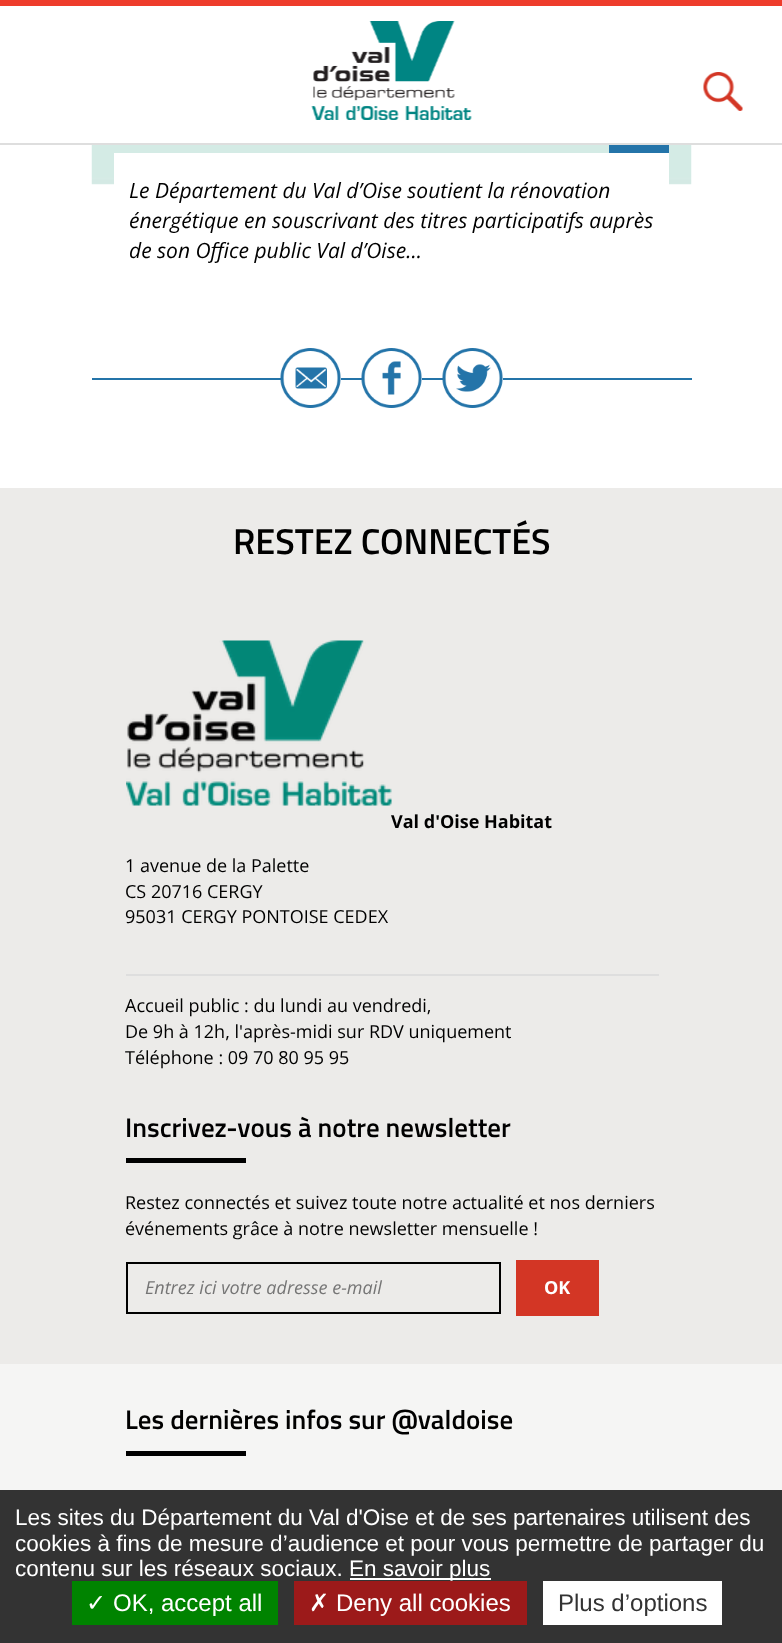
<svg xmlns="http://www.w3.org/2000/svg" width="782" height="1643">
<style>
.a{font:italic 21px Open Sans;fill:#000}
.b{font:600 36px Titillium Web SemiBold;fill:#000}
.c{font:bold 18px Open Sans;fill:#000}
.d{font:18px Open Sans;fill:#000}
.e{font:600 27px Titillium Web SemiBold;fill:#000}
.f{font:italic 18px Open Sans;fill:#757575}
.g{font:bold 18px Open Sans;fill:#fff}
.h{font:22.5px Liberation Sans;fill:#fff}
.i{font:24px DejaVu Sans;fill:#fff}
.j{font:24px Liberation Sans;fill:#fff}
.k{font:24px Liberation Sans;fill:#333}
</style>
<rect width="100%" height="100%" fill="#fff"/>
<path fill="#ee3c2b" d="M0 0h782v6H0z"/>
<path fill="#dedede" d="M0 143h782v2H0z"/>
<image href="1.png" x="311" y="21" width="161" height="99"/>
<image href="2.png" x="703" y="72" width="40" height="39"/>
<image href="3.png" x="91" y="145" width="601" height="40"/>
<path fill="#fff" d="M114 153h555v32H114z"/>
<path fill="#2474a9" d="M609 145h60v8H609z"/>
<path fill="#2474a9" d="M92 378h600v2H92z"/>
<path fill="#fff" d="M281 378h60v2H281z"/>
<image href="4.png" x="280" y="348" width="61" height="60"/>
<path fill="#fff" d="M362 378h60v2H362z"/>
<image href="5.png" x="361" y="348" width="61" height="60"/>
<path fill="#fff" d="M443 378h60v2H443z"/>
<image href="6.png" x="442" y="348" width="61" height="60"/>
<path fill="#f5f5f4" d="M0 1364h782v126H0z"/>
<path fill="#ecebe9" d="M0 488h782v876H0z"/>
<image href="7.png" x="126" y="640" width="266" height="166"/>
<path fill="#dedede" d="M126 974h533v2H126z"/>
<path fill="#000" d="M126 1158h120v5H126z"/>
<path fill="none" stroke="#000" stroke-width="2" d="M127 1263h373v50H127z"/>
<path fill="#d33625" d="M516 1260h83v56H516z"/>
<path fill="#000" d="M126 1451h120v5H126z"/>
<path fill="#333" d="M0 1490h782v153H0z"/>
<path fill="#fff" d="M350 1578h141v2H350z"/>
<path fill="#008300" d="M72 1581h206v44H72z"/>
<path fill="#9c1a1a" d="M294 1581h233v44H294z"/>
<path fill="#fff" d="M543 1581h179v44H543z"/>
<text class="a" x="129" y="198">Le Département du Val d’Oise soutient la rénovation</text>
<text class="a" x="129" y="228">énergétique en souscrivant des titres participatifs auprès</text>
<text class="a" x="129" y="258">de son Office public Val d’Oise...</text>
<text class="b" x="233" y="554">RESTEZ CONNECTÉS</text>
<text class="c" x="391" y="828">Val d'Oise Habitat</text>
<text class="d" x="125" y="872">1 avenue de la Palette</text>
<text class="d" x="125" y="898">CS 20716 CERGY</text>
<text class="d" x="125" y="923">95031 CERGY PONTOISE CEDEX</text>
<text class="d" x="125" y="1012">Accueil public : du lundi au vendredi,</text>
<text class="d" x="125" y="1038">De 9h à 12h, l'après-midi sur RDV uniquement</text>
<text class="d" x="125" y="1064">Téléphone : 09 70 80 95 95</text>
<text class="e" x="125" y="1137">Inscrivez-vous à notre newsletter</text>
<text class="d" x="125" y="1209">Restez connectés et suivez toute notre actualité et nos derniers</text>
<text class="d" x="125" y="1235">événements grâce à notre newsletter mensuelle !</text>
<text class="f" x="145" y="1294">Entrez ici votre adresse e-mail</text>
<text class="g" x="544" y="1294">OK</text>
<text class="e" x="125" y="1429">Les dernières infos sur @valdoise</text>
<text class="h" x="15" y="1525">Les sites du Département du Val d'Oise et de ses partenaires utilisent des</text>
<text class="h" x="15" y="1551">cookies à fins de mesure d’audience et pour vous permettre de partager du</text>
<text class="h" x="15" y="1576">contenu sur les réseaux sociaux.</text>
<text class="h" x="349" y="1576">En savoir plus</text>
<text class="i" x="86" y="1611">✓</text>
<text class="j" x="113" y="1611">OK, accept all</text>
<text class="i" x="309" y="1611">✗</text>
<text class="j" x="336" y="1611">Deny all cookies</text>
<text class="k" x="558" y="1611">Plus d’options</text>
</svg>
